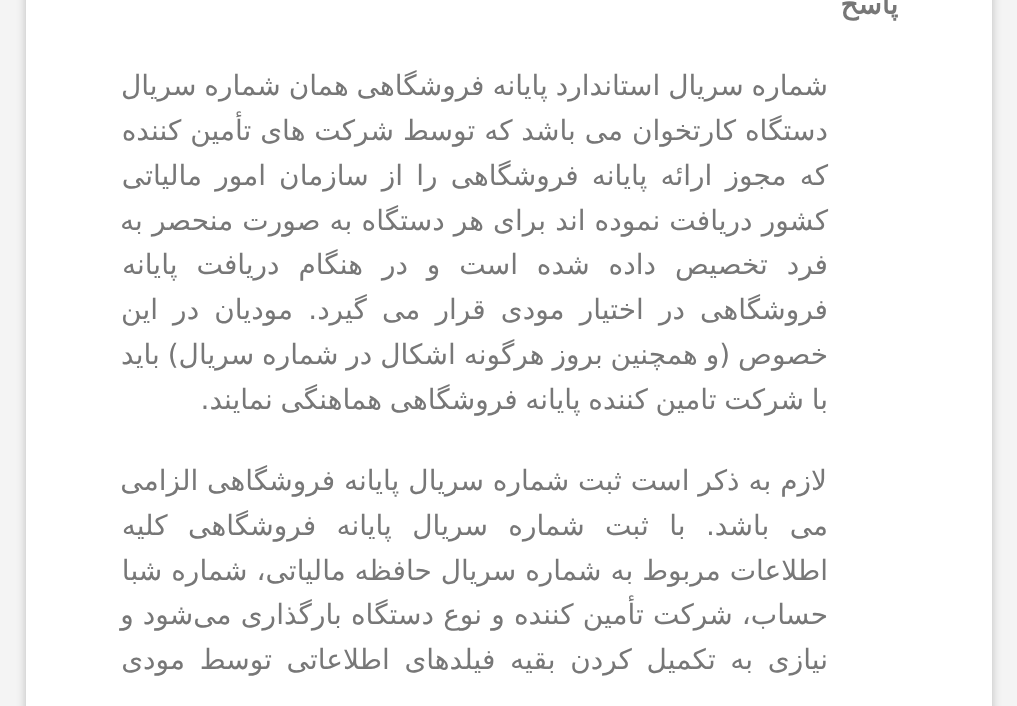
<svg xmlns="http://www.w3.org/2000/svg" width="1017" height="706">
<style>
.a{font:bold 28px DejaVu Sans;direction:rtl;fill:#777}
.b{font:28px DejaVu Sans;direction:rtl;fill:#777}
</style>
<rect width="100%" height="100%" fill="#f4f4f4"/>
<path fill="#0000003b" filter="blur(5px)" d="M26 -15h966v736H26z"/>
<path fill="#fff" d="M26 0h966v706H26z"/>
<text class="a" x="898" y="14">پاسخ</text>
<text class="b" x="828" y="95" word-spacing="-1">شماره سریال استاندارد پایانه فروشگاهی همان شماره سریال</text>
<text class="b" x="828" y="140">دستگاه کارتخوان می باشد که توسط شرکت های تأمین کننده</text>
<text class="b" x="828" y="185" word-spacing="4.25">که مجوز ارائه پایانه فروشگاهی را از سازمان امور مالیاتی</text>
<text class="b" x="828" y="230" word-spacing="0.25">کشور دریافت نموده اند برای هر دستگاه به صورت منحصر به</text>
<text class="b" x="828" y="274" word-spacing="10">فرد تخصیص داده شده است و در هنگام دریافت پایانه</text>
<text class="b" x="828" y="319" word-spacing="6.25">فروشگاهی در اختیار مودی قرار می گیرد. مودیان در این</text>
<text class="b" x="828" y="364" word-spacing="-1">خصوص (و همچنین بروز هرگونه اشکال در شماره سریال) باید</text>
<text class="b" x="828" y="409" word-spacing="-1.25">با شرکت تامین کننده پایانه فروشگاهی هماهنگی نمایند.</text>
<text class="b" x="827" y="490">لازم به ذکر است ثبت شماره سریال پایانه فروشگاهی الزامی</text>
<text class="b" x="828" y="535" word-spacing="11.5">می باشد. با ثبت شماره سریال پایانه فروشگاهی کلیه</text>
<text class="b" x="828" y="580">اطلاعات مربوط به شماره سریال حافظه مالیاتی، شماره شبا</text>
<text class="b" x="828" y="624" word-spacing="0.25">حساب، شرکت تأمین کننده و نوع دستگاه بارگذاری می‌شود و</text>
<text class="b" x="828" y="669" word-spacing="5.75">نیازی به تکمیل کردن بقیه فیلدهای اطلاعاتی توسط مودی</text>
</svg>
